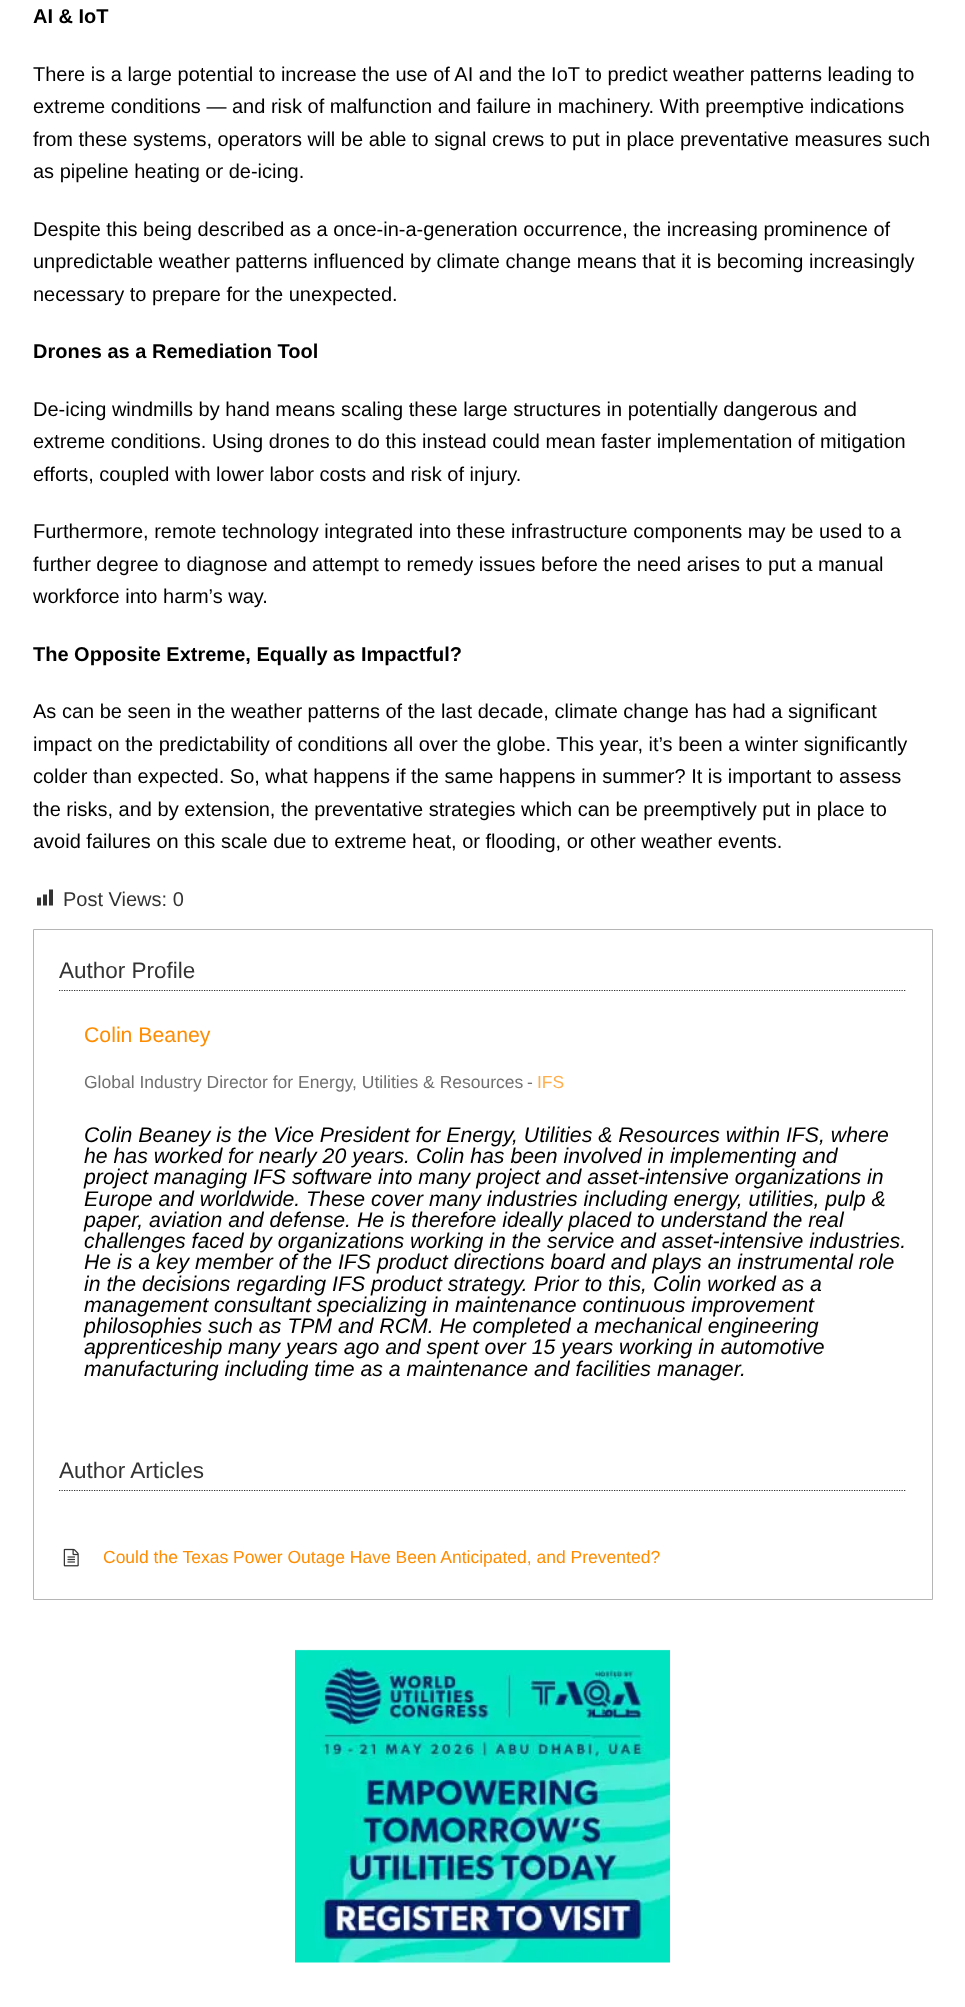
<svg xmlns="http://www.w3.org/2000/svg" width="965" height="2007">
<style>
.a{font:bold 20px Liberation Sans;fill:#000}
.b{font:20px Liberation Sans;fill:#000}
.c{font:20px Liberation Sans;fill:#333}
.d{font:22.5px Liberation Sans;fill:#333}
.e{font:21.25px Liberation Sans;fill:#ff8c01}
.f{font:17.5px Liberation Sans;fill:#707070}
.g{font:17.5px Liberation Sans;fill:#ffaf4d}
.h{font:italic 21.25px Liberation Sans;fill:#000}
.i{font:17.5px Liberation Sans;fill:#ff8c01}
</style>
<rect width="100%" height="100%" fill="#fff"/>
<image href="1.png" x="37" y="889" width="16" height="17"/>
<path fill="none" stroke="#b5b5b5" d="M33.5 929.5h899v670H33.5z"/>
<path fill="none" stroke="#333" stroke-width="1.2" stroke-dasharray="1.25 1.25" d="M59 990.5h847"/>
<path fill="none" stroke="#333" stroke-width="1.2" stroke-dasharray="1.25 1.25" d="M59 1490.5h847"/>
<image href="2.png" x="63" y="1548" width="16" height="19"/>
<image href="3.png" x="295" y="1649" width="375" height="314"/>
<text class="a" x="33" y="23">AI &amp; IoT</text>
<text class="b" x="33" y="81">There is a large potential to increase the use of AI and the IoT to predict weather patterns leading to</text>
<text class="b" x="33" y="113">extreme conditions — and risk of malfunction and failure in machinery. With preemptive indications</text>
<text class="b" x="33" y="146">from these systems, operators will be able to signal crews to put in place preventative measures such</text>
<text class="b" x="33" y="178">as pipeline heating or de-icing.</text>
<text class="b" x="33" y="236">Despite this being described as a once-in-a-generation occurrence, the increasing prominence of</text>
<text class="b" x="33" y="268">unpredictable weather patterns influenced by climate change means that it is becoming increasingly</text>
<text class="b" x="33" y="301">necessary to prepare for the unexpected.</text>
<text class="a" x="33" y="358">Drones as a Remediation Tool</text>
<text class="b" x="33" y="416">De-icing windmills by hand means scaling these large structures in potentially dangerous and</text>
<text class="b" x="33" y="448">extreme conditions. Using drones to do this instead could mean faster implementation of mitigation</text>
<text class="b" x="33" y="481">efforts, coupled with lower labor costs and risk of injury.</text>
<text class="b" x="33" y="538">Furthermore, remote technology integrated into these infrastructure components may be used to a</text>
<text class="b" x="33" y="571">further degree to diagnose and attempt to remedy issues before the need arises to put a manual</text>
<text class="b" x="33" y="603">workforce into harm’s way.</text>
<text class="a" x="33" y="661">The Opposite Extreme, Equally as Impactful?</text>
<text class="b" x="33" y="718">As can be seen in the weather patterns of the last decade, climate change has had a significant</text>
<text class="b" x="33" y="751">impact on the predictability of conditions all over the globe. This year, it’s been a winter significantly</text>
<text class="b" x="33" y="783">colder than expected. So, what happens if the same happens in summer? It is important to assess</text>
<text class="b" x="33" y="816">the risks, and by extension, the preventative strategies which can be preemptively put in place to</text>
<text class="b" x="33" y="848">avoid failures on this scale due to extreme heat, or flooding, or other weather events.</text>
<text class="c" x="63" y="906">Post Views: 0</text>
<text class="d" x="59" y="978">Author Profile</text>
<text class="e" x="84" y="1042">Colin Beaney</text>
<text class="f" x="84" y="1088">Global Industry Director for Energy, Utilities &amp; Resources</text>
<text class="f" x="527" y="1088">-</text>
<text class="g" x="537" y="1088">IFS</text>
<text class="h" x="84" y="1142">Colin Beaney is the Vice President for Energy, Utilities &amp; Resources within IFS, where</text>
<text class="h" x="84" y="1163">he has worked for nearly 20 years. Colin has been involved in implementing and</text>
<text class="h" x="84" y="1184">project managing IFS software into many project and asset-intensive organizations in</text>
<text class="h" x="84" y="1206">Europe and worldwide. These cover many industries including energy, utilities, pulp &amp;</text>
<text class="h" x="84" y="1227">paper, aviation and defense. He is therefore ideally placed to understand the real</text>
<text class="h" x="84" y="1248">challenges faced by organizations working in the service and asset-intensive industries.</text>
<text class="h" x="84" y="1269">He is a key member of the IFS product directions board and plays an instrumental role</text>
<text class="h" x="84" y="1291">in the decisions regarding IFS product strategy. Prior to this, Colin worked as a</text>
<text class="h" x="84" y="1312">management consultant specializing in maintenance continuous improvement</text>
<text class="h" x="84" y="1333">philosophies such as TPM and RCM. He completed a mechanical engineering</text>
<text class="h" x="84" y="1354">apprenticeship many years ago and spent over 15 years working in automotive</text>
<text class="h" x="84" y="1376">manufacturing including time as a maintenance and facilities manager.</text>
<text class="d" x="59" y="1478">Author Articles</text>
<text class="i" x="103" y="1563">Could the Texas Power Outage Have Been Anticipated, and Prevented?</text>
</svg>
